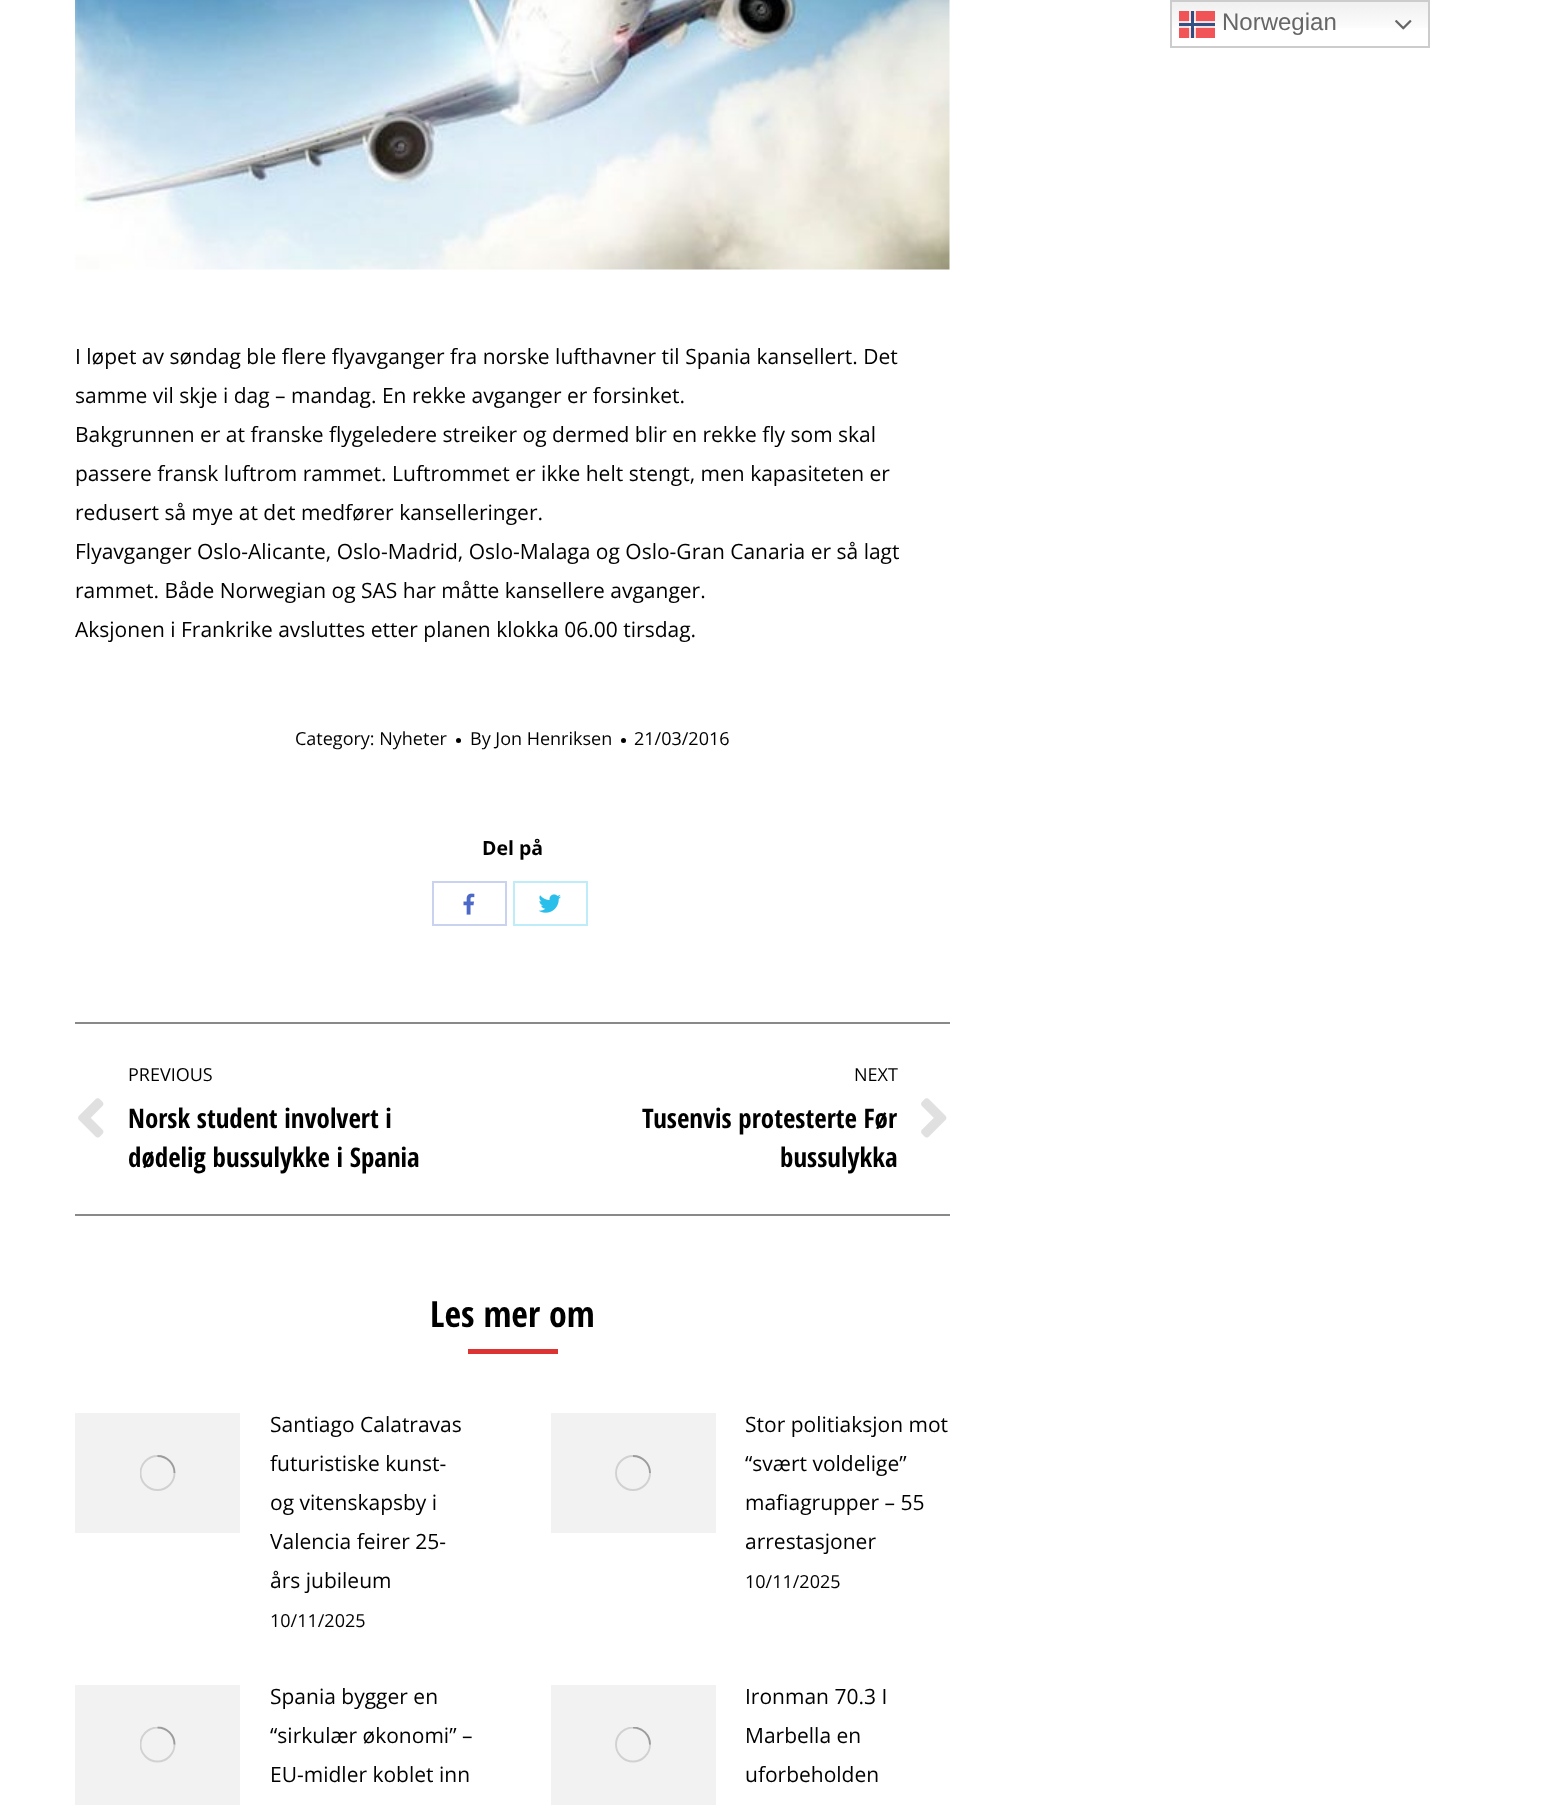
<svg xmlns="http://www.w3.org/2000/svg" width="1553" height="1806">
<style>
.a{font:24px Liberation Sans;fill:#666}
.b{font:21px Open Sans;fill:#000}
.c{font:18px Open Sans;fill:#000}
.d{font:bold 19.5px Open Sans;fill:#000}
.e{font:bold 27px Open Sans Condensed;fill:#000}
.f{font:bold 36px Open Sans Condensed;fill:#000}
</style>
<defs>
<linearGradient id="g1" gradientUnits="userSpaceOnUse" x1="1300" y1="0" x2="1300" y2="48"><stop offset="0" stop-color="#efefef"/><stop offset="0.7" stop-color="#fff"/></linearGradient>
<linearGradient id="g2" gradientUnits="userSpaceOnUse" x1="1300" y1="0" x2="1300" y2="48"><stop offset="0" stop-color="#ef5254"/><stop offset="0.7" stop-color="#f25557"/></linearGradient>
<linearGradient id="g3" gradientUnits="userSpaceOnUse" x1="1300" y1="0" x2="1300" y2="48"><stop offset="0" stop-color="#fcdcdd"/><stop offset="0.7" stop-color="#fcdddd"/></linearGradient>
<clipPath id="clip1"><path d="M140 1455h36v36H140z"/></clipPath>
<clipPath id="clip2"><path d="M140 1727h36v36H140z"/></clipPath>
<clipPath id="clip3"><path d="M615 1727h36v36H615z"/></clipPath>
</defs>
<rect width="100%" height="100%" fill="#fff"/>
<path fill="url(#g1)" d="M1172 2h256v26H1172z"/>
<path fill="url(#g2)" d="M1179 11h36v27H1179z"/>
<path fill="url(#g3)" d="M1179 21h36v7H1179z"/>
<path fill="none" stroke="#ccc" stroke-width="2" d="M1171 1h258v46H1171z"/>
<path fill="#fcdddd" d="M1189 11h7v27H1189z"/>
<path fill="#324c7f" d="M1191 11h3v27H1191z"/>
<image href="1.png" x="1395" y="20" width="17" height="10"/>
<path fill="#fef8f8" d="M1189 21h7v7H1189z"/>
<path fill="#335285" d="M1191 21h3v7H1191z"/>
<path fill="#325285" d="M1179 23h36v3H1179z"/>
<image href="2.png" x="75" y="0" width="875" height="270"/>
<circle fill="#000" cx="458.5" cy="740.5" r="2.5"/>
<circle fill="#000" cx="623.5" cy="740.5" r="2.5"/>
<path fill="none" stroke="#c9d2ee" stroke-width="2" d="M433 882h73v43H433z"/>
<image href="3.png" x="463" y="893" width="12" height="22"/>
<path fill="none" stroke="#bfecf9" stroke-width="2" d="M514 882h73v43H514z"/>
<image href="4.png" x="538" y="894" width="23" height="19"/>
<path fill="#888a8a" d="M75 1022h875v2H75z"/>
<path fill="#888a8a" d="M75 1214h875v2H75z"/>
<image href="5.png" x="78" y="1098" width="26" height="40"/>
<image href="6.png" x="921" y="1098" width="26" height="40"/>
<path fill="#d33" d="M468 1349h90v5H468z"/>
<path fill="#f2f2f2" d="M75 1413h165v120H75z"/>
<g clip-path="url(#clip1)">
<circle fill="none" stroke="#d1d1d1" stroke-width="1.9" cx="157.5" cy="1473" r="17"/>
</g>
<path fill="none" stroke="#00000040" stroke-width="1.9" d="M174.5 1473c0-9.5-7.5-17-17-17"/>
<path fill="#f2f2f2" d="M551 1413h165v120H551z"/>
<circle fill="none" stroke="#d1d1d1" stroke-width="1.9" cx="633" cy="1473" r="17"/>
<path fill="none" stroke="#00000040" stroke-width="1.9" d="M650 1473c0-9.5-7.5-17-17-17"/>
<path fill="#f2f2f2" d="M75 1685h165v120H75z"/>
<g clip-path="url(#clip2)">
<circle fill="none" stroke="#d1d1d1" stroke-width="1.9" cx="157.5" cy="1744.5" r="17"/>
</g>
<path fill="none" stroke="#00000040" stroke-width="1.9" d="M174.5 1744.5c0-9.5-7.5-17-17-17"/>
<path fill="#f2f2f2" d="M551 1685h165v120H551z"/>
<g clip-path="url(#clip3)">
<circle fill="none" stroke="#d1d1d1" stroke-width="1.9" cx="633" cy="1744.5" r="17"/>
<path fill="none" stroke="#00000040" stroke-width="1.9" d="M650 1744.5c0-9.5-7.5-17-17-17"/>
</g>
<text class="a" x="1222" y="30">Norwegian</text>
<text class="b" x="75" y="364">I løpet av søndag ble flere flyavganger fra norske lufthavner til Spania kansellert. Det</text>
<text class="b" x="75" y="403">samme vil skje i dag – mandag. En rekke avganger er forsinket.</text>
<text class="b" x="75" y="442">Bakgrunnen er at franske flygeledere streiker og dermed blir en rekke fly som skal</text>
<text class="b" x="75" y="481">passere fransk luftrom rammet. Luftrommet er ikke helt stengt, men kapasiteten er</text>
<text class="b" x="75" y="520">redusert så mye at det medfører kanselleringer.</text>
<text class="b" x="75" y="559">Flyavganger Oslo-Alicante, Oslo-Madrid, Oslo-Malaga og Oslo-Gran Canaria er så lagt</text>
<text class="b" x="75" y="598">rammet. Både Norwegian og SAS har måtte kansellere avganger.</text>
<text class="b" x="75" y="637">Aksjonen i Frankrike avsluttes etter planen klokka 06.00 tirsdag.</text>
<text class="c" x="295" y="745">Category: Nyheter</text>
<text class="c" x="470" y="745">By Jon Henriksen</text>
<text class="c" x="634" y="745">21/03/2016</text>
<text class="d" x="482" y="855">Del på</text>
<text class="c" x="128" y="1081">PREVIOUS</text>
<text class="e" x="128" y="1128">Norsk student involvert i</text>
<text class="e" x="128" y="1167">dødelig bussulykke i Spania</text>
<text class="c" x="854" y="1081">NEXT</text>
<text class="e" x="642" y="1128">Tusenvis protesterte Før</text>
<text class="e" x="780" y="1167">bussulykka</text>
<text class="f" x="430" y="1327">Les mer om</text>
<text class="b" x="270" y="1432">Santiago Calatravas</text>
<text class="b" x="270" y="1471">futuristiske kunst-</text>
<text class="b" x="270" y="1510">og vitenskapsby i</text>
<text class="b" x="270" y="1549">Valencia feirer 25-</text>
<text class="b" x="270" y="1588">års jubileum</text>
<text class="c" x="270" y="1627">10/11/2025</text>
<text class="b" x="745" y="1432">Stor politiaksjon mot</text>
<text class="b" x="745" y="1471">“svært voldelige”</text>
<text class="b" x="745" y="1510">mafiagrupper – 55</text>
<text class="b" x="745" y="1549">arrestasjoner</text>
<text class="c" x="745" y="1588">10/11/2025</text>
<text class="b" x="270" y="1704">Spania bygger en</text>
<text class="b" x="270" y="1743">“sirkulær økonomi” –</text>
<text class="b" x="270" y="1782">EU-midler koblet inn</text>
<text class="b" x="745" y="1704">Ironman 70.3 I</text>
<text class="b" x="745" y="1743">Marbella en</text>
<text class="b" x="745" y="1782">uforbeholden</text>
</svg>
